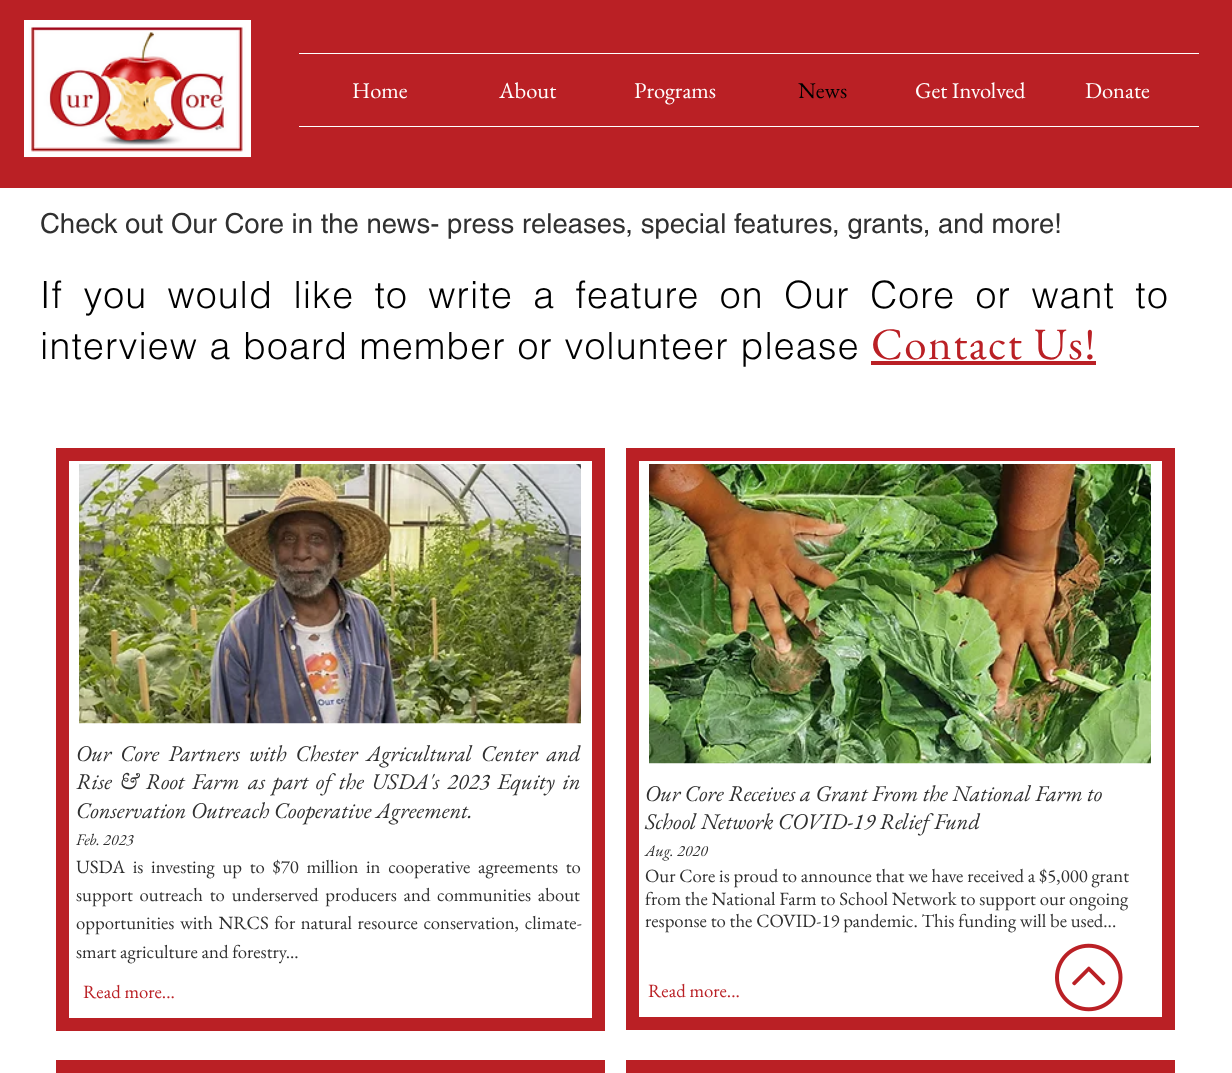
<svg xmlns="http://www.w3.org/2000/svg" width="1232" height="1073">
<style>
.a{font:22.5px EB Garamond;fill:#fff}
.b{font:22.5px EB Garamond;fill:#000}
.c{font:27.5px helvetica;fill:#303030}
.d{font:300 37.5px helvetica;letter-spacing:1.12px;fill:#000}
.e{font:45px EB Garamond;letter-spacing:1.4px;fill:#ba2025}
.f{font:italic 22.5px EB Garamond;fill:#303030}
.g{font:italic 16px EB Garamond;fill:#303030}
.h{font:18.75px EB Garamond;fill:#303030}
.i{font:18.75px EB Garamond;fill:#ba2025}
</style>
<rect width="100%" height="100%" fill="#fff"/>
<path fill="#ba2025" d="M0 0h1232v188H0z"/>
<image href="1.png" x="24" y="20" width="227" height="138"/>
<path fill="#fff" d="M299 53h900v1H299z"/>
<path fill="#fff" d="M299 126h900v1H299z"/>
<path fill="#ba2025" d="M871 361h225v4H871z"/>
<path fill="none" stroke="#ba2025" stroke-width="13" d="M62.5 454.5h536v570H62.5z"/>
<image href="2.png" x="79" y="464" width="502" height="260"/>
<path fill="none" stroke="#ba2025" stroke-width="13" d="M632.5 454.5h536v569H632.5z"/>
<image href="3.png" x="649" y="464" width="502" height="300"/>
<path fill="none" stroke="#ba2025" stroke-width="13" d="M62.5 1066.5h536v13H62.5z"/>
<path fill="none" stroke="#ba2025" stroke-width="13" d="M632.5 1066.5h536v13H632.5z"/>
<image href="4.png" x="1055" y="943" width="68" height="69"/>
<text class="a" x="352" y="98">Home</text>
<text class="a" x="499" y="98">About</text>
<text class="a" x="634" y="98">Programs</text>
<text class="b" x="798" y="98">News</text>
<text class="a" x="915" y="98">Get Involved</text>
<text class="a" x="1085" y="98">Donate</text>
<text class="c" x="40" y="233">Check out Our Core in the news- press releases, special features, grants, and more!</text>
<text class="d" x="40" y="308" word-spacing="8.75">If you would like to write a feature on Our Core or want to</text>
<text class="d" x="40" y="359">interview a board member or volunteer please</text>
<text class="e" x="871" y="359">Contact Us!</text>
<text class="f" x="76" y="761" word-spacing="4.5">Our Core Partners with Chester Agricultural Center and</text>
<text class="f" x="76" y="789" word-spacing="3">Rise &amp; Root Farm</text>
<text class="f" x="248" y="789" word-spacing="3">as part of the USDA's 2023 Equity in</text>
<text class="f" x="76" y="818">Conservation Outreach Cooperative Agreement.</text>
<text class="g" x="76" y="845">Feb. 2023</text>
<text class="h" x="76" y="873" word-spacing="3.9">USDA is investing up to $70 million in cooperative agreements to</text>
<text class="h" x="76" y="901" word-spacing="3">support outreach to underserved producers and communities about</text>
<text class="h" x="76" y="929" word-spacing="1.75">opportunities with NRCS for natural reso</text>
<text class="h" x="387" y="929" word-spacing="2">urce conservation, climate-</text>
<text class="h" x="76" y="958">smart agriculture and forestry...</text>
<text class="i" x="83" y="998">Read more...</text>
<text class="f" x="645" y="801">Our Core Receives a Grant From the National Farm to</text>
<text class="f" x="645" y="829">School Network COVID-19 Relief Fund</text>
<text class="g" x="645" y="856">Aug. 2020</text>
<text class="h" x="645" y="882">Our Core is proud to announce that we have received a $5,000 grant</text>
<text class="h" x="645" y="905">from the National Farm to School Network to support our ongoing</text>
<text class="h" x="645" y="927">response to the COVID-19 pandemic. This funding will be used...</text>
<text class="i" x="648" y="997">Read more...</text>
</svg>
